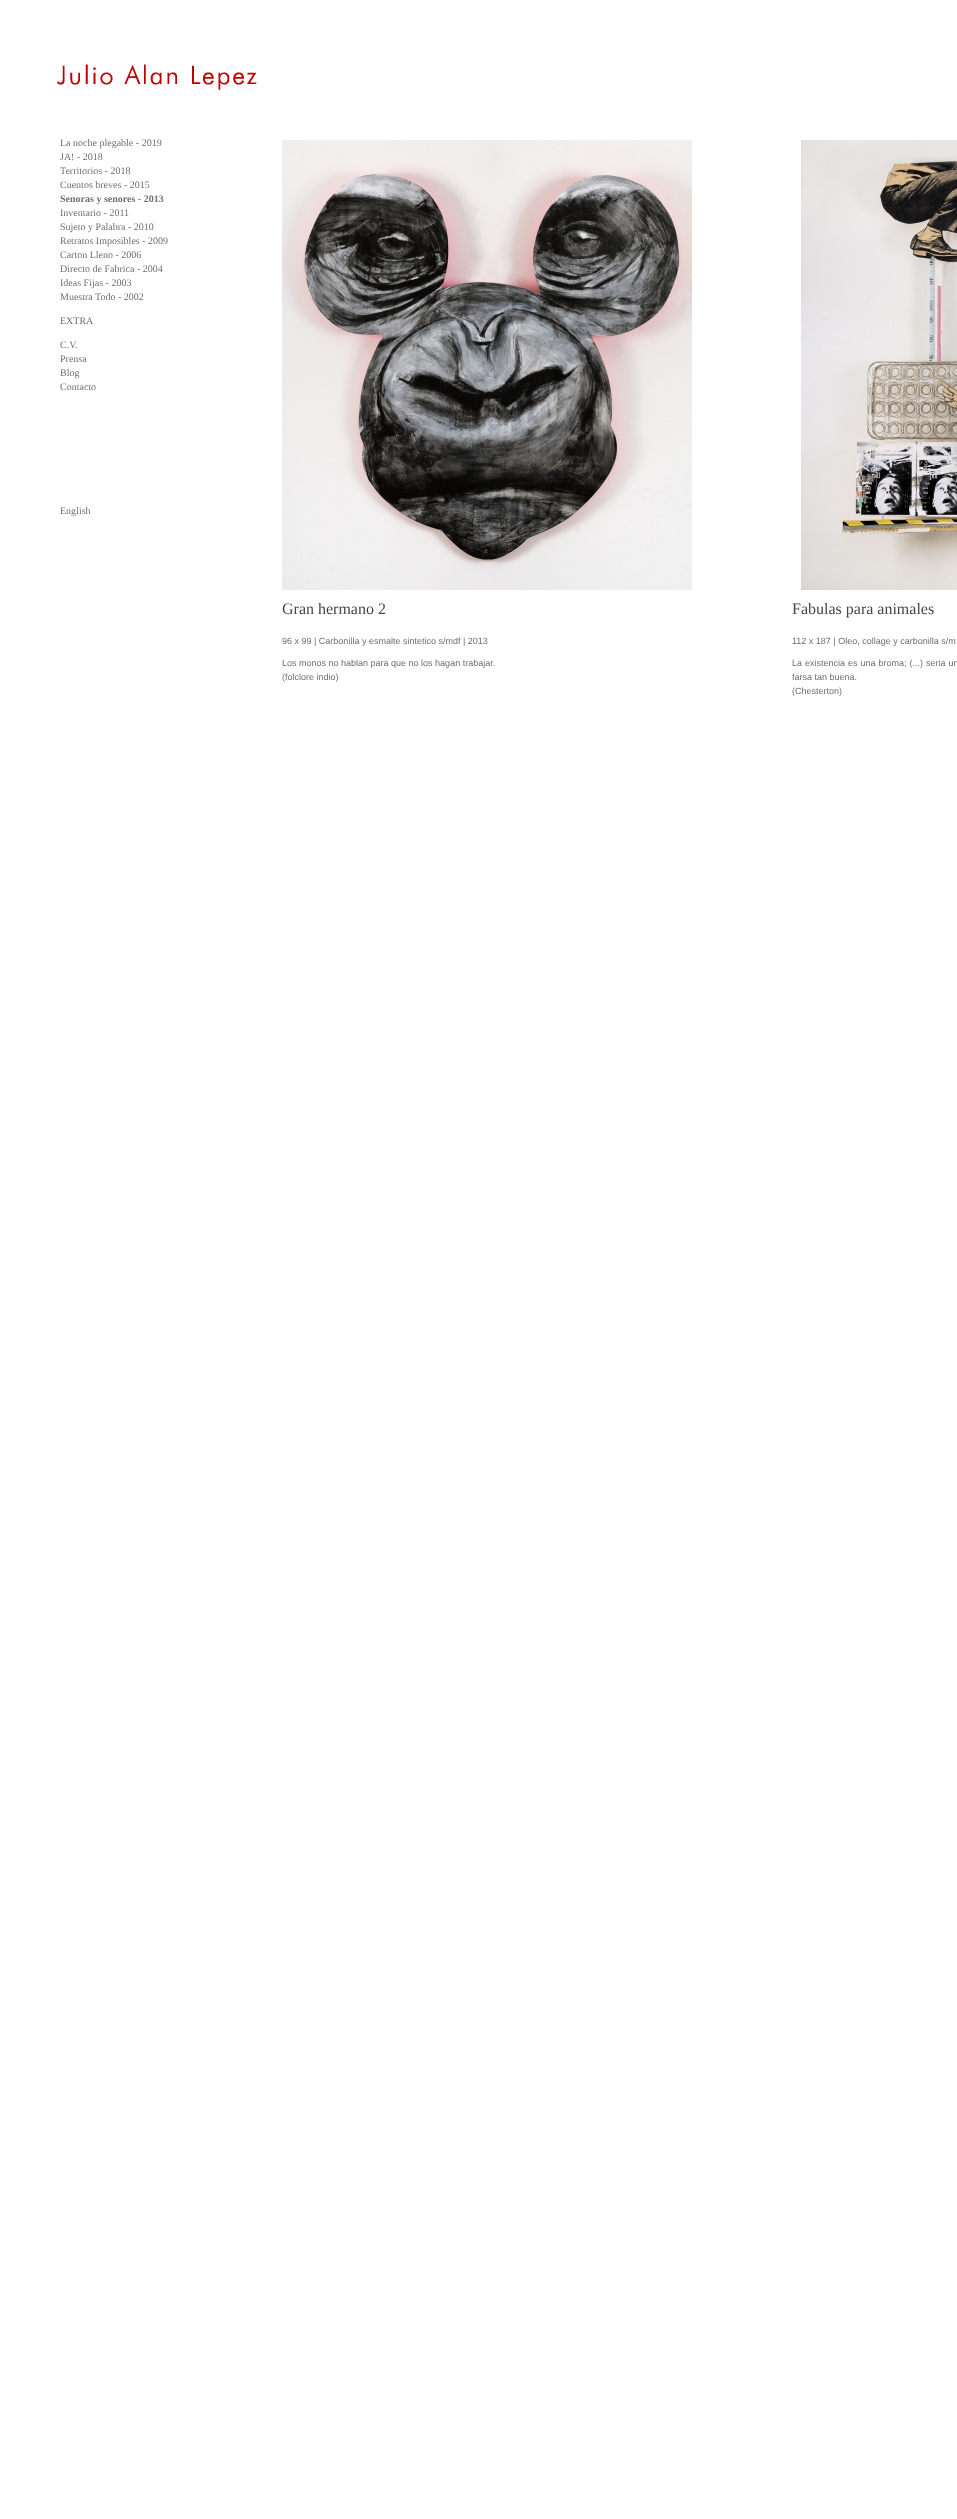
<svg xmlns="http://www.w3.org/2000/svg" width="957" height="2519">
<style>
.a{font:10px Liberation Serif;fill:#6f6f6f}
.b{font:bold 10px Liberation Serif;fill:#6f6f6f}
.c{font:16px Liberation Serif;fill:#464646}
.d{font:9px Liberation Sans;fill:#6f6f6f}
</style>
<rect width="100%" height="100%" fill="#fff"/>
<image href="1.png" x="57" y="64" width="200" height="26"/>
<image href="2.png" x="282" y="140" width="410" height="450"/>
<image href="3.png" x="801" y="140" width="156" height="450"/>
<text class="a" x="60" y="146">La noche plegable - 2019</text>
<text class="a" x="60" y="160">JA! - 2018</text>
<text class="a" x="60" y="174">Territorios - 2018</text>
<text class="a" x="60" y="188">Cuentos breves - 2015</text>
<text class="b" x="60" y="202">Senoras y senores - 2013</text>
<text class="a" x="60" y="216">Inventario - 2011</text>
<text class="a" x="60" y="230">Sujeto y Palabra - 2010</text>
<text class="a" x="60" y="244">Retratos Imposibles - 2009</text>
<text class="a" x="60" y="258">Carton Lleno - 2006</text>
<text class="a" x="60" y="272">Directo de Fabrica - 2004</text>
<text class="a" x="60" y="286">Ideas Fijas - 2003</text>
<text class="a" x="60" y="300">Muestra Todo - 2002</text>
<text class="a" x="60" y="324">EXTRA</text>
<text class="a" x="60" y="348">C.V.</text>
<text class="a" x="60" y="362">Prensa</text>
<text class="a" x="60" y="376">Blog</text>
<text class="a" x="60" y="390">Contacto</text>
<text class="a" x="60" y="514">English</text>
<text class="c" x="282" y="614">Gran hermano 2</text>
<text class="d" x="282" y="644">96 x 99 | Carbonilla y esmalte sintetico s/mdf | 2013</text>
<text class="d" x="282" y="666">Los monos no hablan para que no los hagan trabajar.</text>
<text class="d" x="282" y="680">(folclore indio)</text>
<text class="c" x="792" y="614">Fabulas para animales</text>
<text class="d" x="792" y="644">112 x 187 | Oleo, collage y carbonilla s/m</text>
<text class="d" x="792" y="666" word-spacing="0.5">La existencia es una broma; (...) seria un</text>
<text class="d" x="792" y="680">farsa tan buena.</text>
<text class="d" x="792" y="694">(Chesterton)</text>
</svg>
